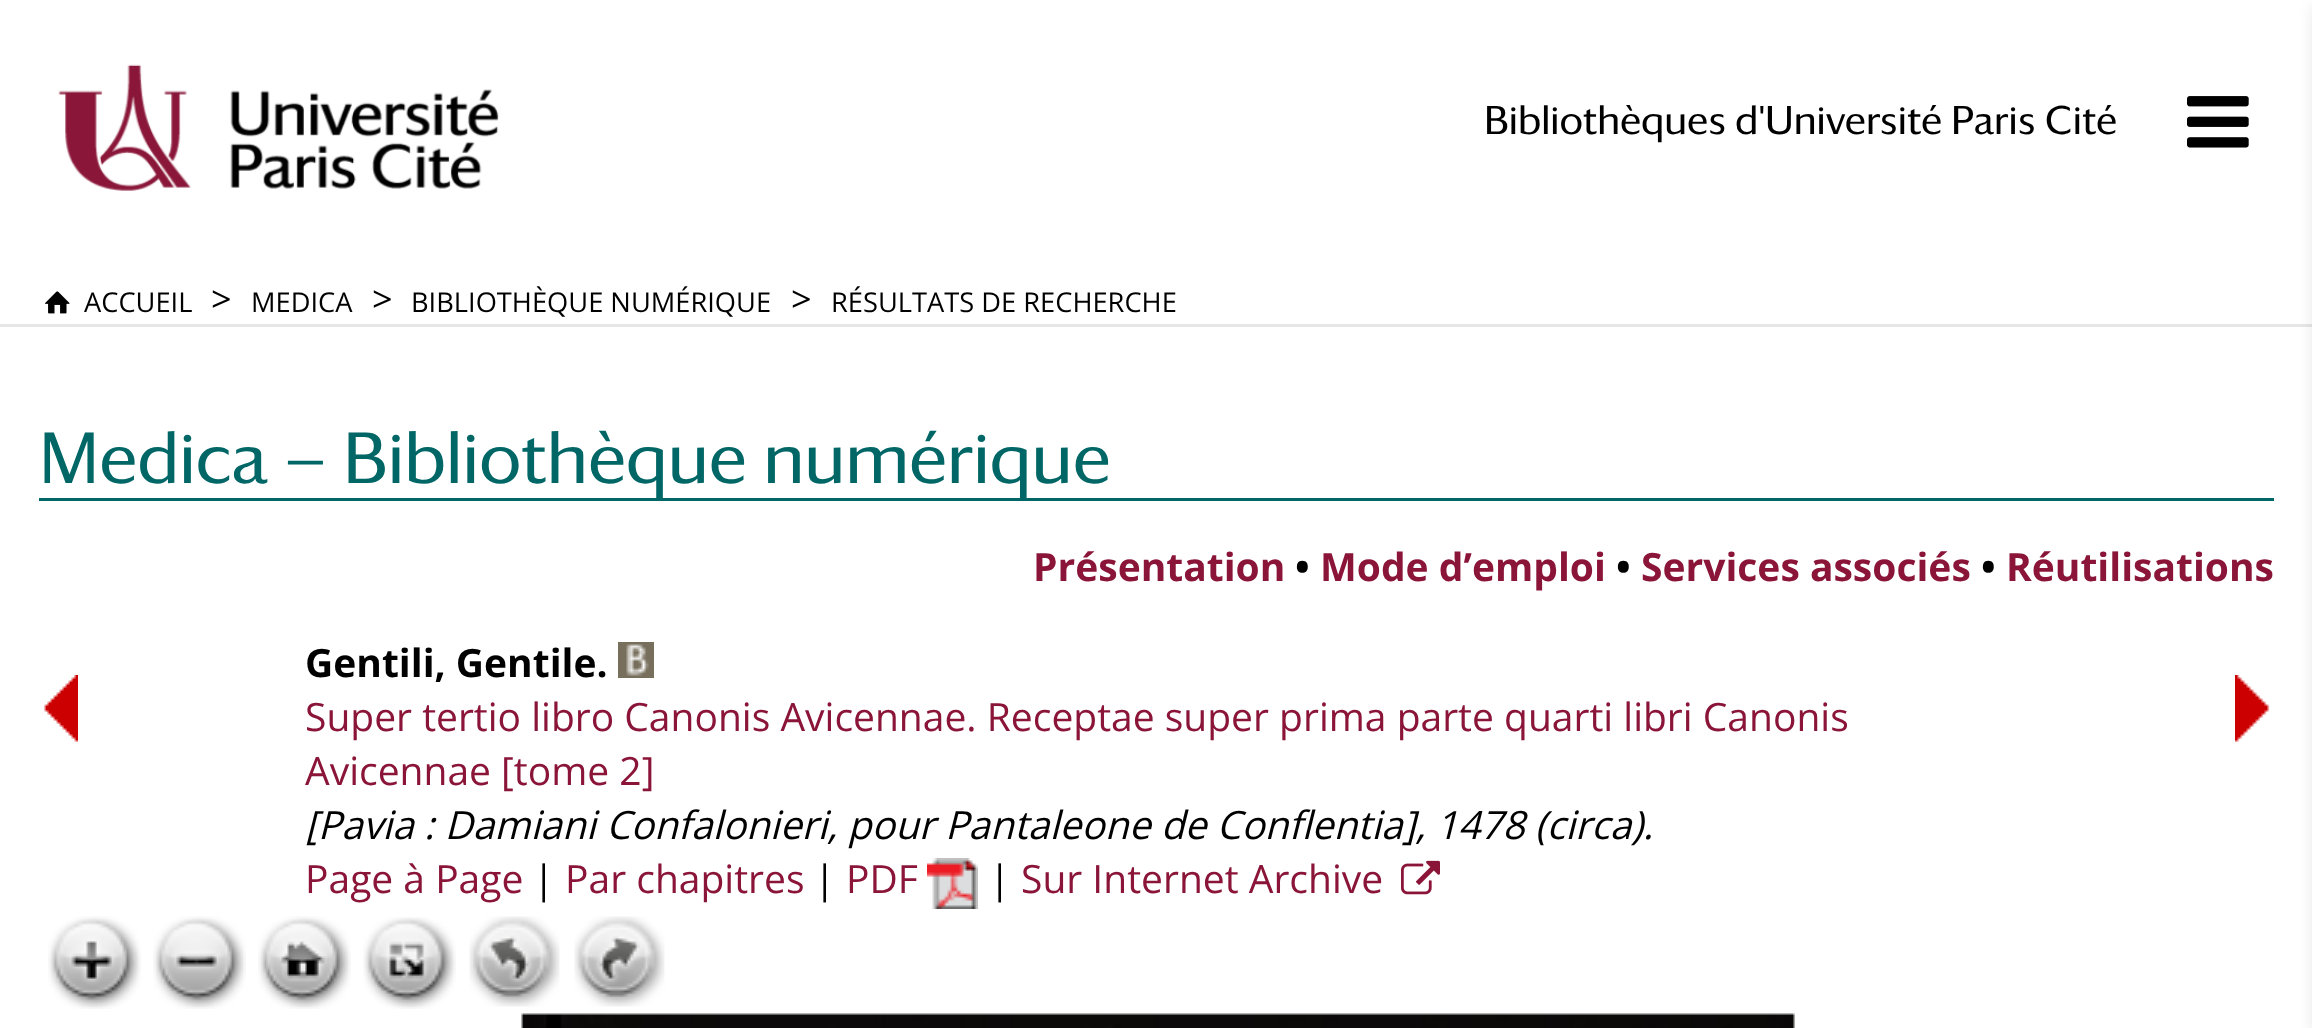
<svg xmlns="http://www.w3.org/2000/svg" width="2312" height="1028">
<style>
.a{font:39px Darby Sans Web;fill:#000}
.b{font:27.25px Open Sans;fill:#000}
.c{font:36px Open Sans;fill:#000}
.d{font:70.25px Darby Sans Web;fill:#066}
.e{font:bold 39px Open Sans;fill:#8a1538}
.f{font:bold 39px Open Sans;fill:#000}
.g{font:39px Open Sans;fill:#8a1538}
.h{font:italic 39px Open Sans;fill:#000}
.i{font:39px Open Sans;fill:#000}
</style>
<rect width="100%" height="100%" fill="#fff"/>
<path fill="#e6e6e6" d="M0 324h2312v3H0z"/>
<image href="1.png" x="58" y="64" width="441" height="127"/>
<image href="2.png" x="2187" y="96" width="62" height="52"/>
<path fill="#0000001a" filter="blur(7.5px)" d="M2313 6h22v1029H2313z"/>
<image href="3.png" x="45" y="291" width="25" height="23"/>
<path fill="#066" d="M39 498h2235v3H39z"/>
<image href="4.png" x="44" y="675" width="34" height="67"/>
<image href="5.png" x="618" y="642" width="36" height="36"/>
<image href="6.png" x="927" y="858" width="51" height="51"/>
<image href="7.png" x="1401" y="860" width="39" height="35"/>
<image href="8.png" x="2235" y="675" width="35" height="67"/>
<image href="9.png" x="48" y="916" width="93" height="93"/>
<image href="10.png" x="51" y="919" width="87" height="88"/>
<image href="11.png" x="153" y="916" width="93" height="93"/>
<image href="12.png" x="156" y="919" width="87" height="88"/>
<image href="13.png" x="258" y="916" width="93" height="93"/>
<image href="14.png" x="261" y="919" width="87" height="88"/>
<image href="15.png" x="363" y="917" width="93" height="92"/>
<image href="16.png" x="366" y="919" width="87" height="88"/>
<image href="17.png" x="469" y="916" width="91" height="91"/>
<image href="18.png" x="470" y="917" width="89" height="89"/>
<image href="19.png" x="574" y="916" width="91" height="91"/>
<image href="20.png" x="575" y="917" width="89" height="89"/>
<image href="21.png" x="521" y="1013" width="1274" height="15"/>
<text class="a" x="1484" y="134">Bibliothèques d'Université Paris Cité</text>
<text class="b" x="84" y="312">ACCUEIL</text>
<text class="c" x="211" y="312">&gt;</text>
<text class="b" x="251" y="312">MEDICA</text>
<text class="c" x="372" y="312">&gt;</text>
<text class="b" x="411" y="312">BIBLIOTHÈQUE NUMÉRIQUE</text>
<text class="c" x="791" y="312">&gt;</text>
<text class="b" x="831" y="312">RÉSULTATS DE RECHERCHE</text>
<text class="d" x="39" y="483">Medica — Bibliothèque numérique</text>
<text class="e" x="1033" y="581">Présentation</text>
<text class="f" x="1295" y="581">•</text>
<text class="e" x="1320" y="581">Mode d’emploi</text>
<text class="f" x="1616" y="581">•</text>
<text class="e" x="1641" y="581">Services associés</text>
<text class="f" x="1981" y="581">•</text>
<text class="e" x="2006" y="581">Réutilisations</text>
<text class="f" x="305" y="677">Gentili, Gentile.</text>
<text class="g" x="305" y="731">Super tertio libro Canonis Avicennae. Receptae super prima parte quarti libri Canonis</text>
<text class="g" x="305" y="785">Avicennae [tome 2]</text>
<text class="h" x="305" y="839">[Pavia : Damiani Confalonieri, pour Pantaleone de Conflentia], 1478 (circa).</text>
<text class="g" x="305" y="893">Page à Page</text>
<text class="i" x="533" y="893">|</text>
<text class="g" x="565" y="893">Par chapitres</text>
<text class="i" x="814" y="893">|</text>
<text class="g" x="846" y="893">PDF</text>
<text class="i" x="989" y="893">|</text>
<text class="g" x="1021" y="893">Sur Internet Archive</text>
</svg>
